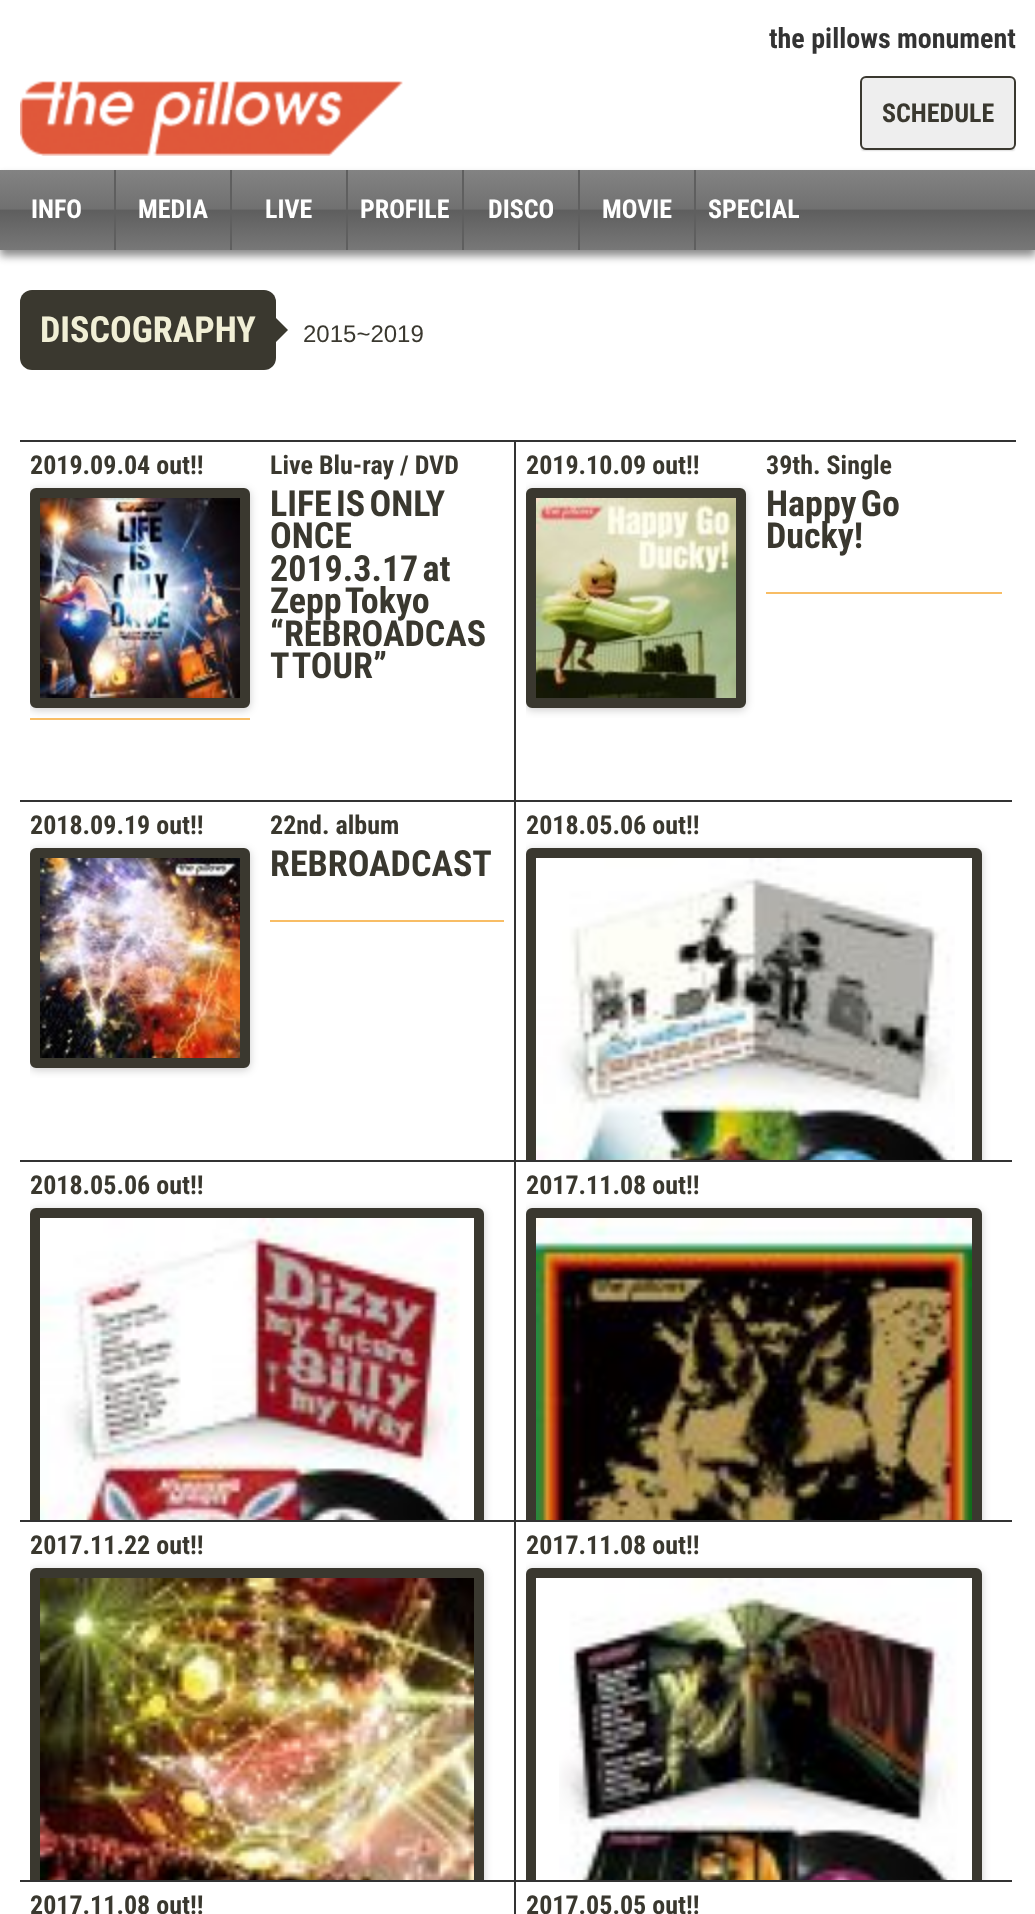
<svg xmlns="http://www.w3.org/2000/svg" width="1035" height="1914">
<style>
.a{font:bold 28px Roboto Condensed;fill:#333}
.b{font:bold 26px Roboto Condensed;fill:#3a382f}
.c{font:bold 26px Roboto Condensed;fill:#fff}
.d{font:bold 36px Roboto Condensed;fill:#f1efd6}
.e{font:24px Liberation Sans;fill:#3a382f}
.f{font:bold 36px Roboto Condensed;fill:#3a382f}
</style>
<defs>
<linearGradient id="g1" gradientUnits="userSpaceOnUse" x1="0" y1="250" x2="0" y2="170"><stop offset="0" stop-color="#787878"/><stop offset="0.5" stop-color="#5e5e5e"/><stop offset="0.51" stop-color="#707070"/><stop offset="1" stop-color="#838383"/></linearGradient>
<linearGradient id="g2" gradientUnits="userSpaceOnUse" x1="116" y1="250" x2="116" y2="170"><stop offset="0" stop-color="#787878"/><stop offset="0.5" stop-color="#5e5e5e"/><stop offset="0.51" stop-color="#707070"/><stop offset="1" stop-color="#838383"/></linearGradient>
<linearGradient id="g3" gradientUnits="userSpaceOnUse" x1="232" y1="250" x2="232" y2="170"><stop offset="0" stop-color="#787878"/><stop offset="0.5" stop-color="#5e5e5e"/><stop offset="0.51" stop-color="#707070"/><stop offset="1" stop-color="#838383"/></linearGradient>
<linearGradient id="g4" gradientUnits="userSpaceOnUse" x1="348" y1="250" x2="348" y2="170"><stop offset="0" stop-color="#787878"/><stop offset="0.5" stop-color="#5e5e5e"/><stop offset="0.51" stop-color="#707070"/><stop offset="1" stop-color="#838383"/></linearGradient>
<linearGradient id="g5" gradientUnits="userSpaceOnUse" x1="464" y1="250" x2="464" y2="170"><stop offset="0" stop-color="#787878"/><stop offset="0.5" stop-color="#5e5e5e"/><stop offset="0.51" stop-color="#707070"/><stop offset="1" stop-color="#838383"/></linearGradient>
<linearGradient id="g6" gradientUnits="userSpaceOnUse" x1="580" y1="250" x2="580" y2="170"><stop offset="0" stop-color="#787878"/><stop offset="0.5" stop-color="#5e5e5e"/><stop offset="0.51" stop-color="#707070"/><stop offset="1" stop-color="#838383"/></linearGradient>
<linearGradient id="g7" gradientUnits="userSpaceOnUse" x1="696" y1="250" x2="696" y2="170"><stop offset="0" stop-color="#787878"/><stop offset="0.5" stop-color="#5e5e5e"/><stop offset="0.51" stop-color="#707070"/><stop offset="1" stop-color="#838383"/></linearGradient>
<clipPath id="clip1"><path d="M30 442h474v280H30z"/></clipPath>
<clipPath id="clip2"><path d="M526 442h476v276H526z"/></clipPath>
<clipPath id="clip3"><path d="M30 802h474v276H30z"/></clipPath>
<clipPath id="clip4"><path d="M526 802h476v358H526z"/></clipPath>
<clipPath id="clip5"><path d="M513 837h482v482h-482zm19 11h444c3.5 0 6 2.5 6 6v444c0 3.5-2.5 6-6 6h-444c-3.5 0-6-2.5-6-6v-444c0-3.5 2.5-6 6-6z" clip-rule="evenodd"/></clipPath>
<clipPath id="clip6"><path d="M526 802h476v358H526z"/></clipPath>
<clipPath id="clip7"><path d="M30 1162h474v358H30z"/></clipPath>
<clipPath id="clip8"><path d="M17 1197h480v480h-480zm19 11h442c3.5 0 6 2.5 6 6v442c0 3.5-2.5 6-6 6h-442c-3.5 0-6-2.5-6-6v-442c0-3.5 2.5-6 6-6z" clip-rule="evenodd"/></clipPath>
<clipPath id="clip9"><path d="M30 1162h474v358H30z"/></clipPath>
<clipPath id="clip10"><path d="M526 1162h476v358H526z"/></clipPath>
<clipPath id="clip11"><path d="M526 1162h476v358H526z"/></clipPath>
<clipPath id="clip12"><path d="M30 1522h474v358H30z"/></clipPath>
<clipPath id="clip13"><path d="M30 1522h474v358H30z"/></clipPath>
<clipPath id="clip14"><path d="M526 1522h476v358H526z"/></clipPath>
<clipPath id="clip15"><path d="M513 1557h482v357h-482zm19 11h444c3.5 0 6 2.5 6 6v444c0 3.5-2.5 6-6 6h-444c-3.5 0-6-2.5-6-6v-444c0-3.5 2.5-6 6-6z" clip-rule="evenodd"/></clipPath>
<clipPath id="clip16"><path d="M526 1522h476v358H526z"/></clipPath>
</defs>
<rect width="100%" height="100%" fill="#fff"/>
<image href="1.png" x="20" y="81" width="383" height="75"/>
<path fill="#0000004d" filter="blur(1px)" d="M862 80h152v70H862z"/>
<rect fill="#eee" stroke="#3a382f" stroke-width="2" x="861" y="77" width="154" height="72" rx="5"/>
<path fill="#8b8b8b" filter="blur(4px)" d="M0 176h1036v80H0z"/>
<path fill="url(#g1)" d="M812 170h223v80H812z"/>
<path fill="url(#g1)" d="M0 170h114v80H0z"/>
<path fill="#5f5f5f" d="M114 170h2v80H114z"/>
<path fill="url(#g2)" d="M116 170h114v80H116z"/>
<path fill="#5f5f5f" d="M230 170h2v80H230z"/>
<path fill="url(#g3)" d="M232 170h114v80H232z"/>
<path fill="#5f5f5f" d="M346 170h2v80H346z"/>
<path fill="url(#g4)" d="M348 170h114v80H348z"/>
<path fill="#5f5f5f" d="M462 170h2v80H462z"/>
<path fill="url(#g5)" d="M464 170h114v80H464z"/>
<path fill="#5f5f5f" d="M578 170h2v80H578z"/>
<path fill="url(#g6)" d="M580 170h114v80H580z"/>
<path fill="#5f5f5f" d="M694 170h2v80H694z"/>
<path fill="url(#g7)" d="M696 170h116v80H696z"/>
<rect fill="#3a382f" x="20" y="290" width="256" height="80" rx="12"/>
<path fill="#3a382f" d="M272 346v-32l16 16z"/>
<path fill="#333" d="M20 440h996v2H20z"/>
<path fill="#333" d="M514 442h2v720H514z"/>
<path fill="#333" d="M20 800h992v2H20z"/>
<g clip-path="url(#clip1)">
<rect fill="#00000033" filter="blur(4px)" x="30" y="490" width="220" height="220" rx="6"/>
</g>
<path fill="#f8bd65" d="M30 718h220v2H30z"/>
<rect fill="none" stroke="#3a382f" stroke-width="10" x="35" y="493" width="210" height="210" rx="1"/>
<image href="2.png" x="40" y="498" width="200" height="200"/>
<path fill="#f8bd65" d="M766 592h236v2H766z"/>
<g clip-path="url(#clip2)">
<rect fill="#00000033" filter="blur(4px)" x="526" y="490" width="220" height="220" rx="6"/>
</g>
<rect fill="none" stroke="#3a382f" stroke-width="10" x="531" y="493" width="210" height="210" rx="1"/>
<image href="3.png" x="536" y="498" width="200" height="200"/>
<path fill="#333" d="M20 1160h992v2H20z"/>
<path fill="#f8bd65" d="M270 920h234v2H270z"/>
<g clip-path="url(#clip3)">
<rect fill="#00000033" filter="blur(4px)" x="30" y="850" width="220" height="220" rx="6"/>
</g>
<rect fill="none" stroke="#3a382f" stroke-width="10" x="35" y="853" width="210" height="210" rx="1"/>
<image href="4.png" x="40" y="858" width="200" height="200"/>
<g clip-path="url(#clip4)">
<g clip-path="url(#clip5)">
<rect fill="#00000033" filter="blur(4px)" x="526" y="850" width="456" height="456" rx="6"/>
</g>
</g>
<g clip-path="url(#clip6)">
<rect fill="none" stroke="#3a382f" stroke-width="10" x="531" y="853" width="446" height="446" rx="1"/>
</g>
<image href="5.png" x="536" y="858" width="419" height="302"/>
<path fill="#333" d="M514 1162h2v360H514z"/>
<path fill="#333" d="M20 1520h992v2H20z"/>
<g clip-path="url(#clip7)">
<g clip-path="url(#clip8)">
<rect fill="#00000033" filter="blur(4px)" x="30" y="1210" width="454" height="454" rx="6"/>
</g>
</g>
<g clip-path="url(#clip9)">
<rect fill="none" stroke="#3a382f" stroke-width="10" x="35" y="1213" width="444" height="444" rx="1"/>
</g>
<image href="6.png" x="40" y="1218" width="420" height="302"/>
<g clip-path="url(#clip10)">
<rect fill="#00000033" filter="blur(4px)" x="526" y="1210" width="456" height="456" rx="6"/>
</g>
<g clip-path="url(#clip11)">
<rect fill="none" stroke="#3a382f" stroke-width="10" x="531" y="1213" width="446" height="446" rx="1"/>
</g>
<image href="7.png" x="536" y="1218" width="436" height="302"/>
<path fill="#333" d="M514 1522h2v360H514z"/>
<path fill="#333" d="M20 1880h992v2H20z"/>
<g clip-path="url(#clip12)">
<rect fill="#00000033" filter="blur(4px)" x="30" y="1570" width="454" height="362" rx="6"/>
</g>
<g clip-path="url(#clip13)">
<rect fill="none" stroke="#3a382f" stroke-width="10" x="35" y="1573" width="444" height="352" rx="1"/>
</g>
<image href="8.png" x="40" y="1578" width="434" height="302"/>
<g clip-path="url(#clip14)">
<g clip-path="url(#clip15)">
<rect fill="#00000033" filter="blur(4px)" x="526" y="1570" width="456" height="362" rx="6"/>
</g>
</g>
<g clip-path="url(#clip16)">
<rect fill="none" stroke="#3a382f" stroke-width="10" x="531" y="1573" width="446" height="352" rx="1"/>
</g>
<image href="9.png" x="559" y="1578" width="399" height="302"/>
<path fill="#333" d="M514 1882h2v32H514z"/>
<text class="a" x="769" y="48">the pillows monument</text>
<text class="b" x="882" y="122">SCHEDULE</text>
<text class="c" x="31" y="218">INFO</text>
<text class="c" x="138" y="218">MEDIA</text>
<text class="c" x="265" y="218">LIVE</text>
<text class="c" x="360" y="218">PROFILE</text>
<text class="c" x="488" y="218">DISCO</text>
<text class="c" x="602" y="218">MOVIE</text>
<text class="c" x="708" y="218">SPECIAL</text>
<text class="d" x="40" y="342">DISCOGRAPHY</text>
<text class="e" x="303" y="342">2015~2019</text>
<text class="b" x="30" y="474">2019.09.04 out!!</text>
<text class="b" x="270" y="474">Live Blu-ray / DVD</text>
<text class="f" x="270" y="516" word-spacing="-4">LIFE IS ONLY</text>
<text class="f" x="270" y="548">ONCE</text>
<text class="f" x="270" y="581" word-spacing="-4">2019.3.17 at</text>
<text class="f" x="270" y="613" word-spacing="-4">Zepp Tokyo</text>
<text class="f" x="270" y="646">“REBROADCAS</text>
<text class="f" x="270" y="678" word-spacing="-4">T TOUR”</text>
<text class="b" x="526" y="474">2019.10.09 out!!</text>
<text class="b" x="766" y="474">39th. Single</text>
<text class="f" x="766" y="516" word-spacing="-4">Happy Go</text>
<text class="f" x="766" y="548">Ducky!</text>
<text class="b" x="30" y="834">2018.09.19 out!!</text>
<text class="b" x="270" y="834">22nd. album</text>
<text class="f" x="270" y="876">REBROADCAST</text>
<text class="b" x="526" y="834">2018.05.06 out!!</text>
<text class="b" x="30" y="1194">2018.05.06 out!!</text>
<text class="b" x="526" y="1194">2017.11.08 out!!</text>
<text class="b" x="30" y="1554">2017.11.22 out!!</text>
<text class="b" x="526" y="1554">2017.11.08 out!!</text>
<text class="b" x="30" y="1914">2017.11.08 out!!</text>
<text class="b" x="526" y="1914">2017.05.05 out!!</text>
</svg>
